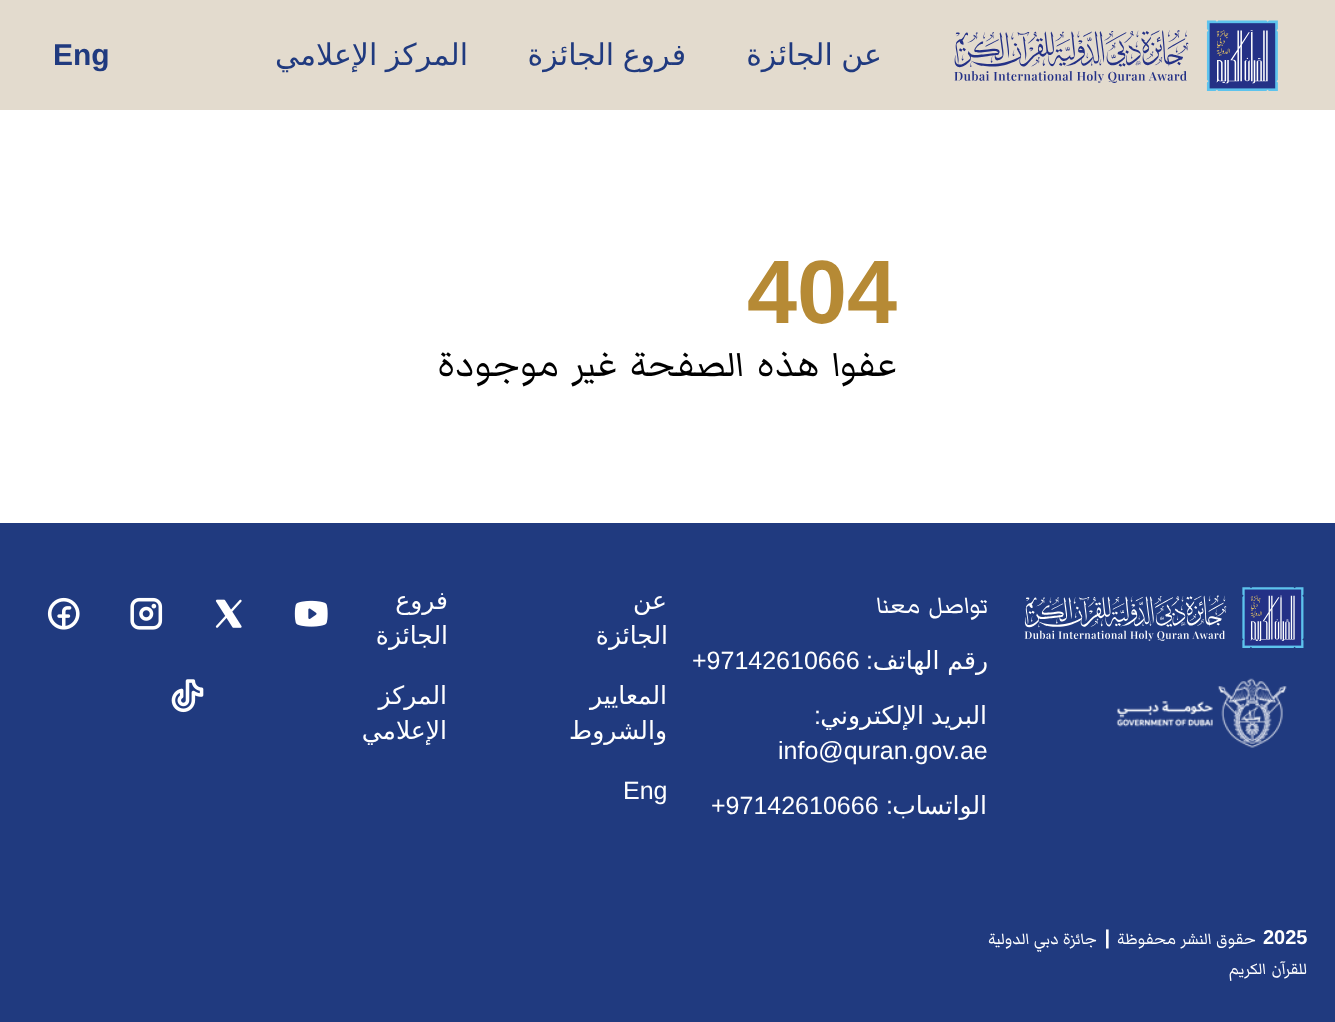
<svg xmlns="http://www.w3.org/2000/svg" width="1335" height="1022">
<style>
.a{font:30px DejaVu Sans;direction:rtl;fill:#203a7f}
.b{font:bold 30px Liberation Sans;fill:#203a7f}
.c{font:bold 90px Liberation Sans;fill:#b68a35}
.d{font:45px Markazi Text;direction:rtl;fill:#000}
.e{font:30px Markazi Text;direction:rtl;fill:#fff}
.f{font:25px DejaVu Sans;direction:rtl;fill:#fff}
.g{font:25px Liberation Sans;direction:rtl;fill:#fff}
.h{font:25px Liberation Sans;fill:#fff}
.i{font:bold 20px Liberation Sans;fill:#fff}
.j{font:20px Markazi Text;direction:rtl;fill:#fff}
.k{font:bold 20px Liberation Sans;direction:rtl;fill:#fff}
</style>
<rect width="100%" height="100%" fill="#fff"/>
<path fill="#e3dbce" d="M0 0h1335v110H0z"/>
<image href="1.png" x="954" y="20" width="324" height="71"/>
<path fill="#203a7f" d="M0 523h1335v499H0z"/>
<image href="2.png" x="1024" y="587" width="280" height="61"/>
<image href="3.png" x="1116" y="678" width="171" height="70"/>
<image href="4.png" x="294" y="600" width="34" height="27"/>
<image href="5.png" x="215" y="599" width="27" height="29"/>
<image href="6.png" x="130" y="597" width="33" height="33"/>
<image href="7.png" x="47" y="597" width="33" height="33"/>
<image href="8.png" x="171" y="679" width="33" height="34"/>
<text class="a" x="882" y="65" word-spacing="-1">عن الجائزة</text>
<text class="a" x="686" y="65" word-spacing="-1">فروع الجائزة</text>
<text class="a" x="468" y="65" word-spacing="-1">المركز الإعلامي</text>
<text class="b" x="53" y="65">Eng</text>
<text class="c" x="747" y="323">404</text>
<text class="d" x="897" y="376" word-spacing="5">عفوا هذه الصفحة غير موجودة</text>
<text class="e" x="988" y="613" word-spacing="3">تواصل معنا</text>
<text class="f" x="988" y="669">رقم الهاتف</text>
<text class="g" x="873" y="669">:</text>
<text class="h" x="692" y="669">+97142610666</text>
<text class="f" x="987" y="724" word-spacing="-1">البريد الإلكتروني</text>
<text class="g" x="821" y="724">:</text>
<text class="h" x="778" y="759">info@quran.gov.ae</text>
<text class="f" x="987" y="814">الواتساب</text>
<text class="g" x="893" y="814">:</text>
<text class="h" x="711" y="814">+97142610666</text>
<text class="f" x="667" y="609">عن</text>
<text class="f" x="668" y="644">الجائزة</text>
<text class="f" x="448" y="609">فروع</text>
<text class="f" x="448" y="644">الجائزة</text>
<text class="f" x="667" y="704">المعايير</text>
<text class="f" x="667" y="739">والشروط</text>
<text class="f" x="447" y="704">المركز</text>
<text class="f" x="447" y="739">الإعلامي</text>
<text class="h" x="623" y="799">Eng</text>
<text class="i" x="1263" y="944">2025</text>
<text class="j" x="1256" y="944" word-spacing="1">حقوق النشر محفوظة</text>
<text class="k" x="1110" y="944">|</text>
<text class="j" x="1097" y="944" word-spacing="1">جائزة دبي الدولية</text>
<text class="j" x="1307" y="974" word-spacing="2">للقرآن الكريم</text>
</svg>
